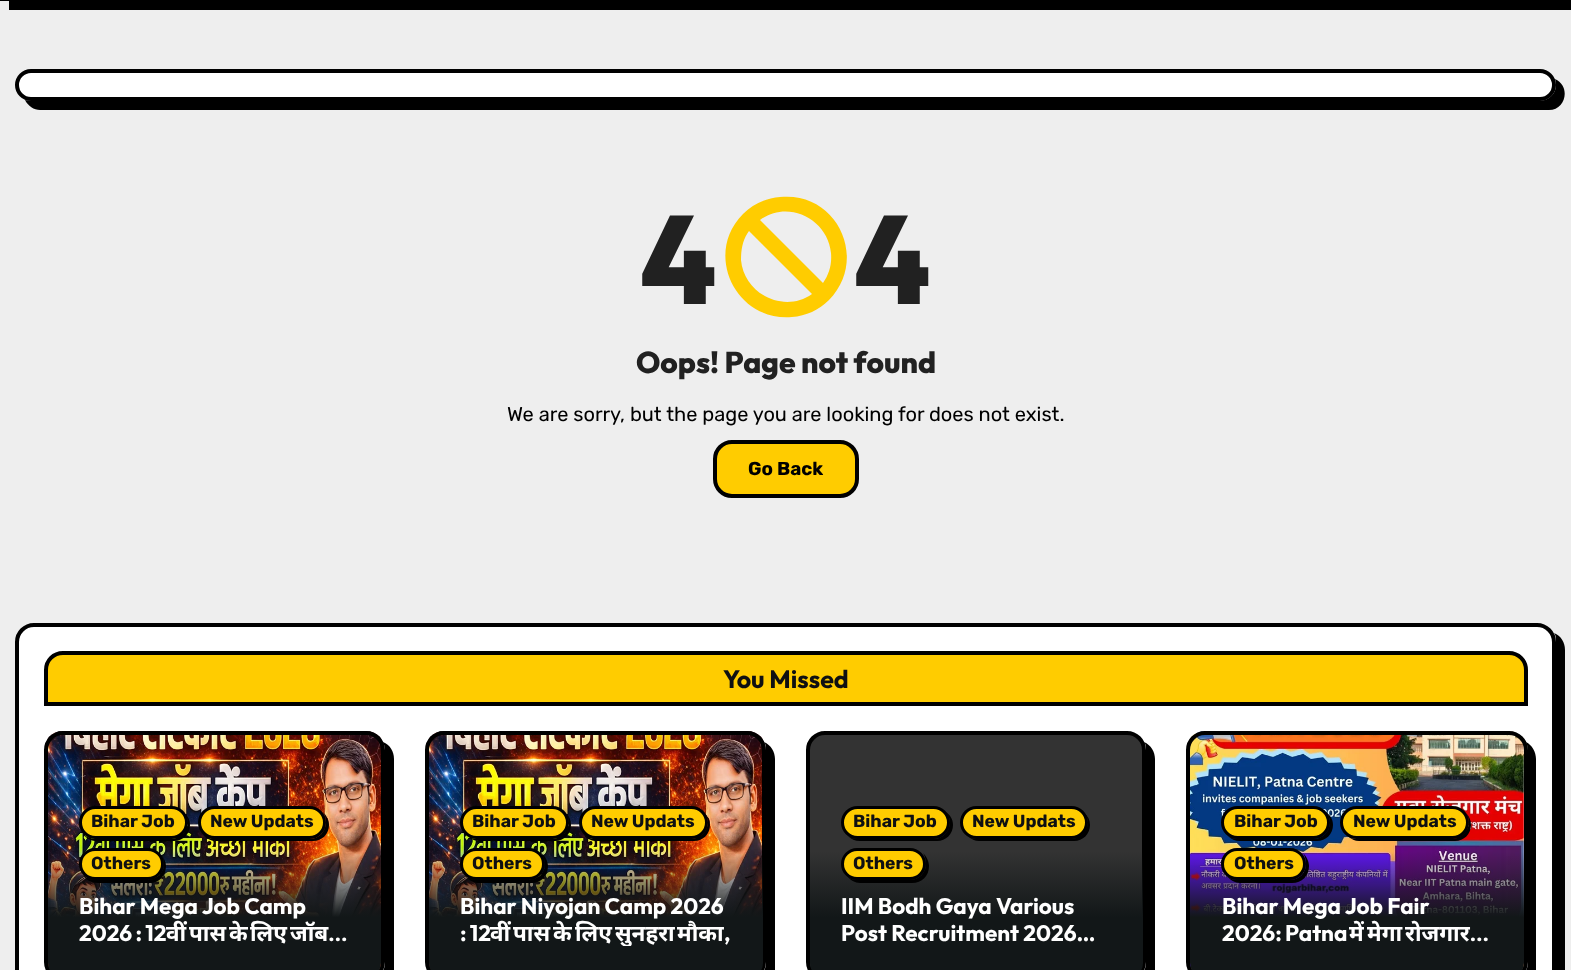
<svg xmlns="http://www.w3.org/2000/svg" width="1571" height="970">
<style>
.a{font:800 125px Outfit;fill:#212121}
.b{font:800 30px Outfit;fill:#212121}
.c{font:300 20px Rubik;fill:#000}
.d{font:bold 18.75px Rubik;fill:#000}
.e{font:bold 25px Outfit;fill:#0f1012}
.f{font:bold 17.5px Rubik;fill:#0f1012}
.g{font:bold 22.5px Outfit;fill:#fff}
.h{font:bold 22.5px Noto Sans;fill:#fff}
</style>
<defs>
<linearGradient id="g1" gradientUnits="userSpaceOnUse" x1="214" y1="735" x2="214" y2="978"><stop offset="0.48" stop-color="#121718" stop-opacity="0"/><stop offset="0.75" stop-color="#121718"/></linearGradient>
<linearGradient id="g2" gradientUnits="userSpaceOnUse" x1="596" y1="735" x2="596" y2="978"><stop offset="0.48" stop-color="#121718" stop-opacity="0"/><stop offset="0.75" stop-color="#121718"/></linearGradient>
<linearGradient id="g3" gradientUnits="userSpaceOnUse" x1="976" y1="735" x2="976" y2="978"><stop offset="0.48" stop-color="#121718" stop-opacity="0"/><stop offset="0.75" stop-color="#121718"/></linearGradient>
<linearGradient id="g4" gradientUnits="userSpaceOnUse" x1="1357" y1="735" x2="1357" y2="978"><stop offset="0.48" stop-color="#121718" stop-opacity="0"/><stop offset="0.75" stop-color="#121718"/></linearGradient>
<clipPath id="clip1"><path d="M460 893h271v53H460z"/></clipPath>
</defs>
<rect width="100%" height="100%" fill="#eee"/>
<path fill="#000" d="M9 1v9h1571v-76h-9v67z"/>
<path fill="none" stroke="#000" stroke-width="4" d="M2 -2h1567v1H2z"/>
<path fill="#000" d="M25 100c3 6 9 10 15 10h1509c17 0 22-24 6-31c4 11-4 22-15 22h-1509z"/>
<rect fill="#fff" stroke="#000" stroke-width="4" x="17" y="71" width="1537" height="28" rx="14"/>
<path fill="#fc0" d="M743 214c10-10 23-16 37-17c57-6 89 62 49 103c-10 10-23 16-37 17c-56 5-89-63-49-103zm88 39c-3-34-43-54-71-33l63 63c6-9 9-18 8-30zm-90 7c3 34 43 54 71 34l-63-63c-6 8-8 18-8 29z"/>
<rect fill="#fc0" stroke="#000" stroke-width="4" x="715" y="442" width="142" height="54" rx="17"/>
<path fill="#000" d="M26 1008c3 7 9 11 17 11h1503c10 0 19-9 19-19v-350c0-8-4-14-11-17c2 2 2 5 2 8v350c0 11-8 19-18 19h-1504c-3 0-6-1-8-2z"/>
<rect fill="#fff" stroke="#000" stroke-width="4" x="17" y="625" width="1537" height="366" rx="17"/>
<path fill="#fc0" stroke="#000" stroke-width="4" d="M63 653h1446c9.5 0 17 7.5 17 17v34h-1480v-34c0-9.5 7.5-17 17-17z"/>
<path fill="#000" d="M55 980c3 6 10 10 17 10h303c10 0 19-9 19-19v-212c0-8-4-14-11-17c1 2 2 5 2 8v212c0 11-8 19-19 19h-304c-2 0-5 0-7-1z"/>
<image href="1.png" x="47" y="731" width="335" height="239"/>
<rect fill="none" stroke="#000" stroke-width="4" x="46" y="733" width="337" height="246" rx="17"/>
<rect fill="url(#g1)" x="48" y="735" width="333" height="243" rx="15"/>
<path fill="#000" d="M84 835c3 4 8 6 13 6h77c9 0 16-7 16-16c0-5-2-9-6-12c2 2 4 6 4 9c0 9-8 17-17 17h-76c-4 0-8-2-11-4z"/>
<rect fill="#fc0" stroke="#000" stroke-width="3" x="80.5" y="807.5" width="106" height="30" rx="15"/>
<path fill="#000" d="M204 835c3 4 7 6 12 6h97c9 0 16-7 16-16c0-5-3-10-6-13c2 3 3 7 3 10c0 9-7 17-16 17h-96c-4 0-7-2-10-4z"/>
<rect fill="#fc0" stroke="#000" stroke-width="3" x="199.5" y="807.5" width="125" height="30" rx="15"/>
<path fill="#000" d="M83 875c3 5 9 8 15 8h52c9 0 16-7 16-17c0-4-2-8-5-11c2 2 3 5 3 9c0 9-8 16-16 16h-53c-4 0-9-2-12-5z"/>
<rect fill="#fc0" stroke="#000" stroke-width="3" x="80.5" y="849.5" width="82" height="29" rx="14.5"/>
<path fill="#000" d="M436 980c3 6 10 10 17 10h303c10 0 19-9 19-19v-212c0-7-4-14-11-17c2 2 2 5 2 8v212c0 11-8 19-18 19h-304c-3 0-6 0-8-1z"/>
<image href="2.png" x="428" y="731" width="335" height="239"/>
<rect fill="none" stroke="#000" stroke-width="4" x="427" y="733" width="337" height="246" rx="17"/>
<rect fill="url(#g2)" x="429" y="735" width="334" height="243" rx="15"/>
<path fill="#000" d="M468 836c3 3 7 5 11 5h76c9 0 16-7 16-16c0-5-2-9-5-12c2 3 3 6 3 9c0 9-8 17-17 17h-76c-3 0-6-1-8-3z"/>
<rect fill="#fc0" stroke="#000" stroke-width="3" x="461.5" y="807.5" width="106" height="30" rx="15"/>
<path fill="#000" d="M584 835c3 4 8 6 13 6h97c9 0 16-7 16-16c0-5-2-9-6-12c2 2 4 6 4 9c0 9-8 17-17 17h-96c-4 0-8-2-11-4z"/>
<rect fill="#fc0" stroke="#000" stroke-width="3" x="580.5" y="807.5" width="126" height="30" rx="15"/>
<path fill="#000" d="M467 877c3 4 7 6 13 6h52c9 0 16-7 16-17c0-5-3-10-7-13c2 3 4 7 4 11c0 9-7 16-16 16h-53c-3 0-7-1-9-3z"/>
<rect fill="#fc0" stroke="#000" stroke-width="3" x="461.5" y="849.5" width="82" height="29" rx="14.5"/>
<path fill="#000" d="M817 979c3 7 10 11 17 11h302c10 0 19-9 19-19v-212c0-7-4-14-11-17c2 2 2 5 2 8v212c0 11-8 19-18 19h-303c-3 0-6 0-8-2z"/>
<rect fill="#333" stroke="#000" stroke-width="4" x="808" y="733" width="336" height="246" rx="17"/>
<rect fill="url(#g3)" x="810" y="735" width="333" height="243" rx="15"/>
<path fill="#000" d="M848 836c3 3 7 5 12 5h77c9 0 16-7 16-16c0-6-3-10-7-13c2 3 4 6 4 10c0 9-7 17-16 17h-76c-4 0-7-1-10-3z"/>
<rect fill="#fc0" stroke="#000" stroke-width="3" x="842.5" y="807.5" width="106" height="30" rx="15"/>
<path fill="#000" d="M968 836c3 3 7 5 11 5h95c9 0 16-7 16-16c0-5-2-9-6-12c2 2 4 6 4 9c0 9-8 17-17 17h-95c-3 0-6-1-8-3z"/>
<rect fill="#fc0" stroke="#000" stroke-width="3" x="961.5" y="807.5" width="125" height="30" rx="15"/>
<path fill="#000" d="M847 876c3 4 8 7 13 7h52c10 0 17-7 17-17c0-5-3-10-6-13c2 3 3 7 3 11c0 9-7 16-16 16h-52c-4 0-8-1-11-4z"/>
<rect fill="#fc0" stroke="#000" stroke-width="3" x="842.5" y="849.5" width="82" height="29" rx="14.5"/>
<path fill="#000" d="M1197 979c3 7 10 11 17 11h303c10 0 19-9 19-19v-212c0-7-4-14-10-17c1 3 2 5 2 8v212c0 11-9 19-19 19h-304c-3 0-6 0-8-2z"/>
<image href="3.png" x="1190" y="731" width="334" height="239"/>
<rect fill="none" stroke="#000" stroke-width="4" x="1188" y="733" width="338" height="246" rx="17"/>
<rect fill="url(#g4)" x="1190" y="735" width="334" height="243" rx="15"/>
<path fill="#000" d="M1228 836c3 3 7 5 12 5h77c9 0 16-7 16-16c0-6-3-10-7-13c2 3 4 6 4 10c0 9-7 17-16 17h-76c-4 0-7-1-10-3z"/>
<rect fill="#fc0" stroke="#000" stroke-width="3" x="1222.5" y="807.5" width="106" height="30" rx="15"/>
<path fill="#000" d="M1348 836c3 3 7 5 11 5h96c9 0 16-7 16-16c0-5-2-9-5-12c2 3 3 6 3 9c0 9-8 17-17 17h-96c-3 0-6-1-8-3z"/>
<rect fill="#fc0" stroke="#000" stroke-width="3" x="1341.5" y="807.5" width="126" height="30" rx="15"/>
<path fill="#000" d="M1227 876c3 4 8 7 13 7h52c10 0 17-7 17-17c0-5-3-10-6-13c2 3 3 7 3 11c0 9-7 16-16 16h-52c-4 0-8-1-11-4z"/>
<rect fill="#fc0" stroke="#000" stroke-width="3" x="1222.5" y="849.5" width="82" height="29" rx="14.5"/>
<text class="a" x="640" y="304">4</text>
<text class="a" x="854" y="304">4</text>
<text class="b" x="636" y="373">Oops! Page not found</text>
<text class="c" x="507" y="421">We are sorry, but the page you are looking for does not exist.</text>
<text class="d" x="748" y="475">Go Back</text>
<text class="e" x="723" y="688">You Missed</text>
<text class="f" x="91" y="827">Bihar Job</text>
<text class="f" x="210" y="827">New Updats</text>
<text class="f" x="91" y="869">Others</text>
<text class="g" x="79" y="914">Bihar Mega Job Camp</text>
<text class="g" x="79" y="941" word-spacing="-1">2026 : 12</text>
<text class="h" x="166" y="941">वीं</text>
<text class="h" x="189" y="941">पास</text>
<text class="h" x="229" y="941">के</text>
<text class="h" x="250" y="941">लिए</text>
<text class="h" x="290" y="941">जॉब…</text>
<text class="f" x="472" y="827">Bihar Job</text>
<text class="f" x="591" y="827">New Updats</text>
<text class="f" x="472" y="869">Others</text>
<text class="g" x="460" y="914">Bihar Niyojan Camp 2026</text>
<text class="g" x="460" y="941" word-spacing="-1">: 12</text>
<text class="h" x="490" y="941">वीं</text>
<text class="h" x="513" y="941">पास</text>
<text class="h" x="553" y="941">के</text>
<text class="h" x="575" y="941">लिए</text>
<g clip-path="url(#clip1)">
<text class="h" x="615" y="941">सुनहरा</text>
</g>
<text class="h" x="677" y="941">मौका</text>
<text class="g" x="724" y="941">,</text>
<text class="f" x="853" y="827">Bihar Job</text>
<text class="f" x="972" y="827">New Updats</text>
<text class="f" x="853" y="869">Others</text>
<text class="g" x="841" y="914">IIM Bodh Gaya Various</text>
<text class="g" x="841" y="941">Post Recruitment 2026…</text>
<text class="f" x="1234" y="827">Bihar Job</text>
<text class="f" x="1353" y="827">New Updats</text>
<text class="f" x="1234" y="869">Others</text>
<text class="g" x="1222" y="914">Bihar Mega Job Fair</text>
<text class="g" x="1222" y="941" word-spacing="-1">2026: Patna</text>
<text class="h" x="1349" y="941">में</text>
<text class="h" x="1367" y="941">मेगा</text>
<text class="h" x="1405" y="941">रोजगार…</text>
</svg>
